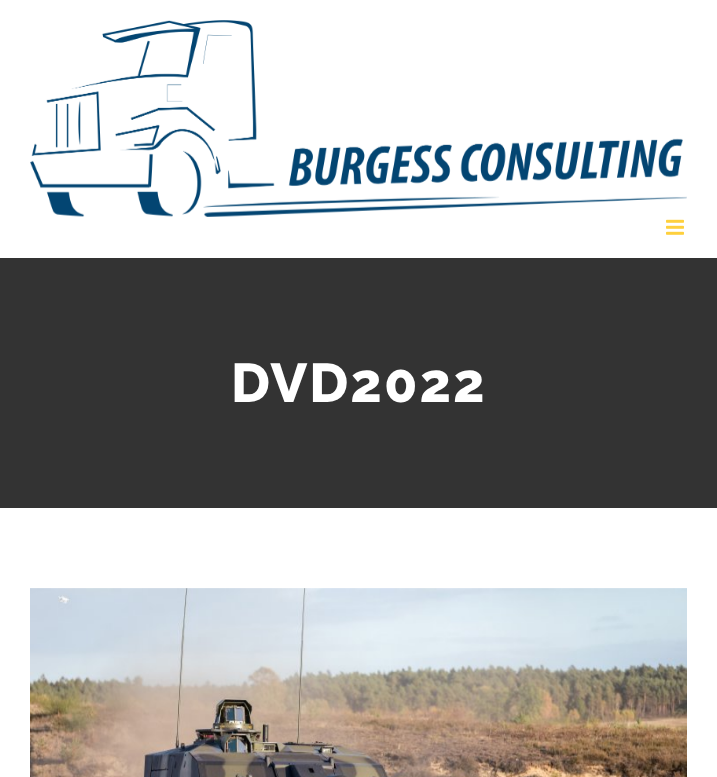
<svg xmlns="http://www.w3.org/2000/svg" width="717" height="777">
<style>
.a{font:800 54.5px Raleway;letter-spacing:2px;fill:#fff}
</style>
<rect width="100%" height="100%" fill="#fff"/>
<image href="1.png" x="30" y="20" width="657" height="197"/>
<image href="2.png" x="666" y="219" width="18" height="16"/>
<path fill="#333" d="M0 258h717v250H0z"/>
<image href="3.png" x="30" y="588" width="657" height="189"/>
<text class="a" x="231" y="402">DVD2022</text>
</svg>
